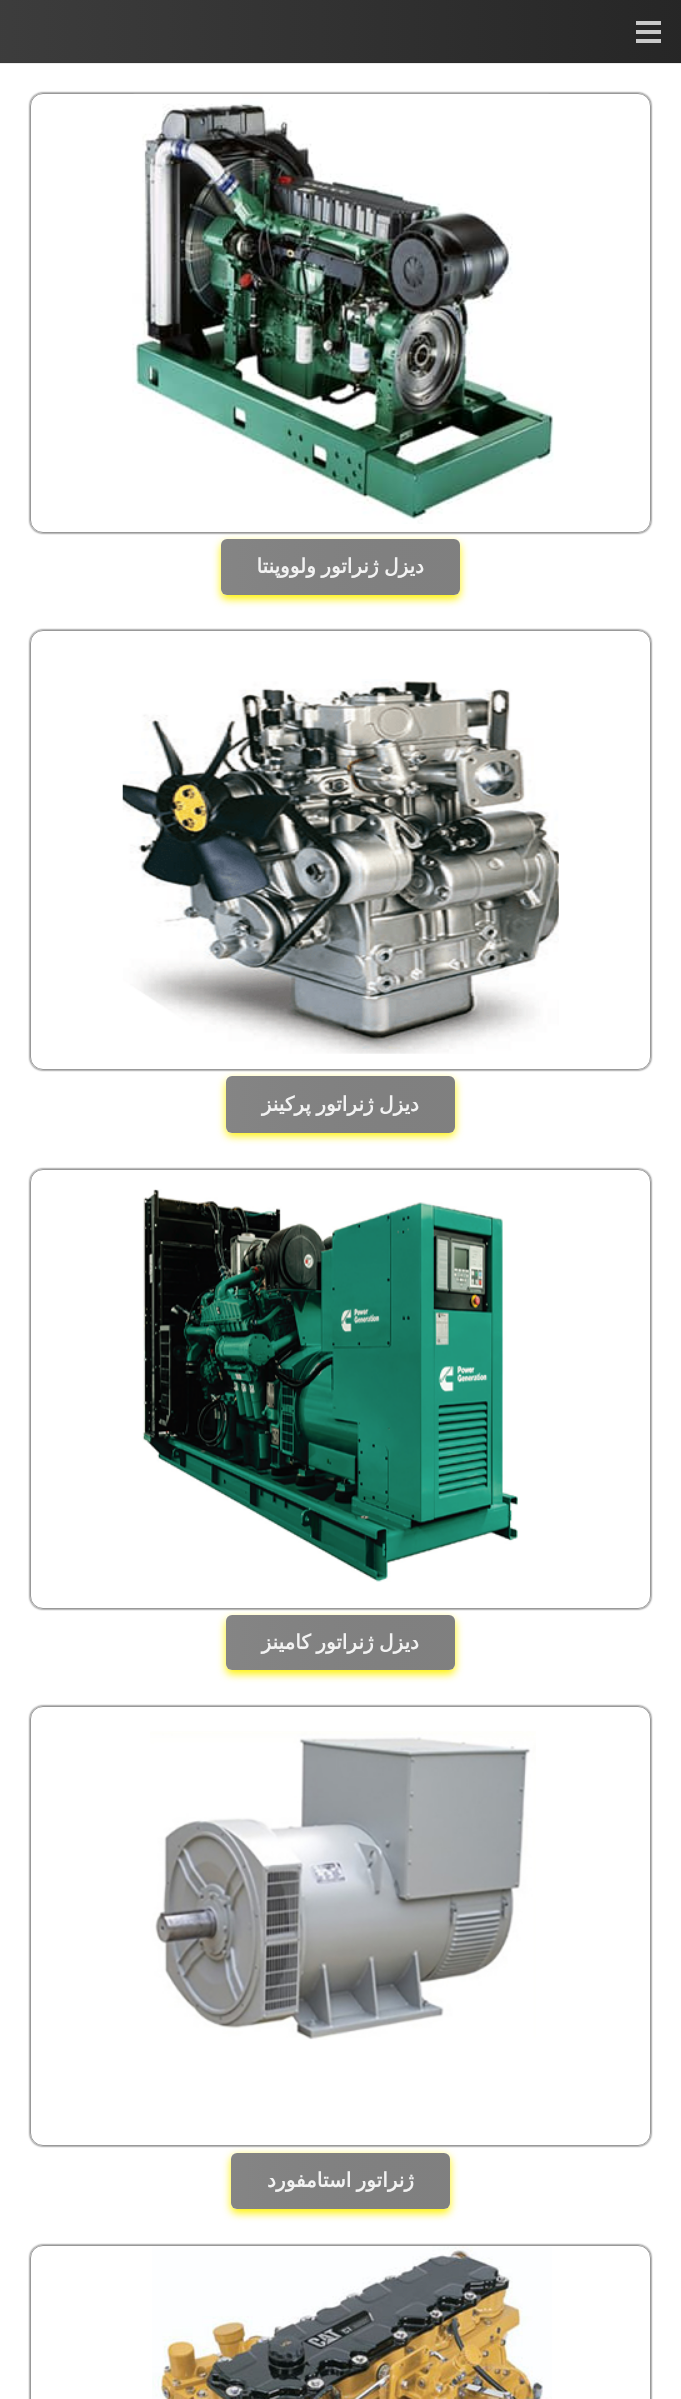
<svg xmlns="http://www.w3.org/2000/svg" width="681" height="2399">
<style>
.a{font:bold 20px DejaVu Sans;direction:rtl;fill:#f2f2f2}
</style>
<defs>
<linearGradient id="g1" gradientUnits="userSpaceOnUse" x1="0" y1="31" x2="681" y2="31"><stop offset="0" stop-color="#1a1a1a" stop-opacity="0.85"/><stop offset="1" stop-color="#000" stop-opacity="0.85"/></linearGradient>
<clipPath id="clip1"><path d="M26 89h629v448h-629zm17 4h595c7 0 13 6 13 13v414c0 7-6 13-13 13h-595c-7 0-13-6-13-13v-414c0-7 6-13 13-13z" clip-rule="evenodd"/></clipPath>
<clipPath id="clip2"><path d="M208 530h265v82h-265zm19 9h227c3.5 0 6 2.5 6 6v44c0 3.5-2.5 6-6 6h-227c-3.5 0-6-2.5-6-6v-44c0-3.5 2.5-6 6-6z" clip-rule="evenodd"/></clipPath>
<linearGradient id="g2" gradientUnits="userSpaceOnUse" x1="221" y1="567" x2="460" y2="567"><stop offset="0" stop-color="#333" stop-opacity="0.6"/><stop offset="1" stop-color="#000" stop-opacity="0.5"/></linearGradient>
<clipPath id="clip3"><path d="M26 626h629v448h-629zm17 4h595c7 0 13 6 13 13v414c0 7-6 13-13 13h-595c-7 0-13-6-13-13v-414c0-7 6-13 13-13z" clip-rule="evenodd"/></clipPath>
<clipPath id="clip4"><path d="M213 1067h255v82h-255zm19 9h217c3.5 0 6 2.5 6 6v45c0 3.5-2.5 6-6 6h-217c-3.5 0-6-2.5-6-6v-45c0-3.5 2.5-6 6-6z" clip-rule="evenodd"/></clipPath>
<linearGradient id="g3" gradientUnits="userSpaceOnUse" x1="226" y1="1104" x2="455" y2="1104"><stop offset="0" stop-color="#333" stop-opacity="0.6"/><stop offset="1" stop-color="#000" stop-opacity="0.5"/></linearGradient>
<clipPath id="clip5"><path d="M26 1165h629v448h-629zm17 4h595c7 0 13 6 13 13v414c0 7-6 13-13 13h-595c-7 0-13-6-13-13v-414c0-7 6-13 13-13z" clip-rule="evenodd"/></clipPath>
<clipPath id="clip6"><path d="M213 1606h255v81h-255zm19 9h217c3.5 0 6 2.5 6 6v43c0 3.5-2.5 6-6 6h-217c-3.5 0-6-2.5-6-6v-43c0-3.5 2.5-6 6-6z" clip-rule="evenodd"/></clipPath>
<linearGradient id="g4" gradientUnits="userSpaceOnUse" x1="226" y1="1643" x2="455" y2="1643"><stop offset="0" stop-color="#333" stop-opacity="0.6"/><stop offset="1" stop-color="#000" stop-opacity="0.5"/></linearGradient>
<clipPath id="clip7"><path d="M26 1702h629v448h-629zm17 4h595c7 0 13 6 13 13v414c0 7-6 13-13 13h-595c-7 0-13-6-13-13v-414c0-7 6-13 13-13z" clip-rule="evenodd"/></clipPath>
<clipPath id="clip8"><path d="M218 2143h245v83h-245zm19 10h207c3.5 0 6 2.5 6 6v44c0 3.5-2.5 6-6 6h-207c-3.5 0-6-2.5-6-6v-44c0-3.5 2.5-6 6-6z" clip-rule="evenodd"/></clipPath>
<linearGradient id="g5" gradientUnits="userSpaceOnUse" x1="231" y1="2181" x2="450" y2="2181"><stop offset="0" stop-color="#333" stop-opacity="0.6"/><stop offset="1" stop-color="#000" stop-opacity="0.5"/></linearGradient>
<clipPath id="clip9"><path d="M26 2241h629v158h-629zm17 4h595c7 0 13 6 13 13v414c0 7-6 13-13 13h-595c-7 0-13-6-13-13v-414c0-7 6-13 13-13z" clip-rule="evenodd"/></clipPath>
</defs>
<rect width="100%" height="100%" fill="#fff"/>
<path fill="#ebebeb" d="M0 62h681v2H0z"/>
<path fill="url(#g1)" d="M0 0h681v63H0z"/>
<path fill="#c9c9c9" d="M636 30h25v4H636z"/>
<path fill="#c9c9c9" d="M636 21h25v4H636z"/>
<path fill="#c9c9c9" d="M636 39h25v4H636z"/>
<g clip-path="url(#clip1)">
<rect fill="#333" filter="blur(1px)" x="30" y="93" width="621" height="440" rx="13"/>
</g>
<rect fill="none" stroke="#999" x="30.5" y="93.5" width="620" height="439" rx="12.5"/>
<image href="1.png" x="132" y="93" width="422" height="431"/>
<g clip-path="url(#clip2)">
<rect fill="#fff200" filter="blur(4px)" x="221" y="543" width="239" height="56" rx="6"/>
</g>
<rect fill="url(#g2)" x="221" y="539" width="239" height="56" rx="6"/>
<g clip-path="url(#clip3)">
<rect fill="#333" filter="blur(1px)" x="30" y="630" width="621" height="440" rx="13"/>
</g>
<rect fill="none" stroke="#999" x="30.5" y="630.5" width="620" height="439" rx="12.5"/>
<image href="2.png" x="122" y="679" width="437" height="375"/>
<g clip-path="url(#clip4)">
<rect fill="#fff200" filter="blur(4px)" x="226" y="1080" width="229" height="56" rx="6"/>
</g>
<rect fill="url(#g3)" x="226" y="1076" width="229" height="57" rx="6"/>
<g clip-path="url(#clip5)">
<rect fill="#333" filter="blur(1px)" x="30" y="1169" width="621" height="440" rx="13"/>
</g>
<rect fill="none" stroke="#999" x="30.5" y="1169.5" width="620" height="439" rx="12.5"/>
<image href="3.png" x="142" y="1189" width="376" height="393"/>
<g clip-path="url(#clip6)">
<rect fill="#fff200" filter="blur(4px)" x="226" y="1619" width="229" height="55" rx="6"/>
</g>
<rect fill="url(#g4)" x="226" y="1615" width="229" height="55" rx="6"/>
<g clip-path="url(#clip7)">
<rect fill="#333" filter="blur(1px)" x="30" y="1706" width="621" height="440" rx="13"/>
</g>
<rect fill="none" stroke="#999" x="30.5" y="1706.5" width="620" height="439" rx="12.5"/>
<image href="4.png" x="150" y="1731" width="386" height="309"/>
<g clip-path="url(#clip8)">
<rect fill="#fff200" filter="blur(4px)" x="231" y="2156" width="219" height="57" rx="6"/>
</g>
<rect fill="url(#g5)" x="231" y="2153" width="219" height="56" rx="6"/>
<g clip-path="url(#clip9)">
<rect fill="#333" filter="blur(1px)" x="30" y="2245" width="621" height="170" rx="13"/>
</g>
<rect fill="none" stroke="#999" x="30.5" y="2245.5" width="620" height="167" rx="12.5"/>
<image href="5.png" x="152" y="2246" width="400" height="153"/>
<text class="a" x="424" y="573" word-spacing="-1">دیزل ژنراتور ولووپنتا</text>
<text class="a" x="419" y="1111" word-spacing="-1">دیزل ژنراتور پرکینز</text>
<text class="a" x="419" y="1649" word-spacing="-1">دیزل ژنراتور کامینز</text>
<text class="a" x="414" y="2187" word-spacing="-1">ژنراتور استامفورد</text>
</svg>
